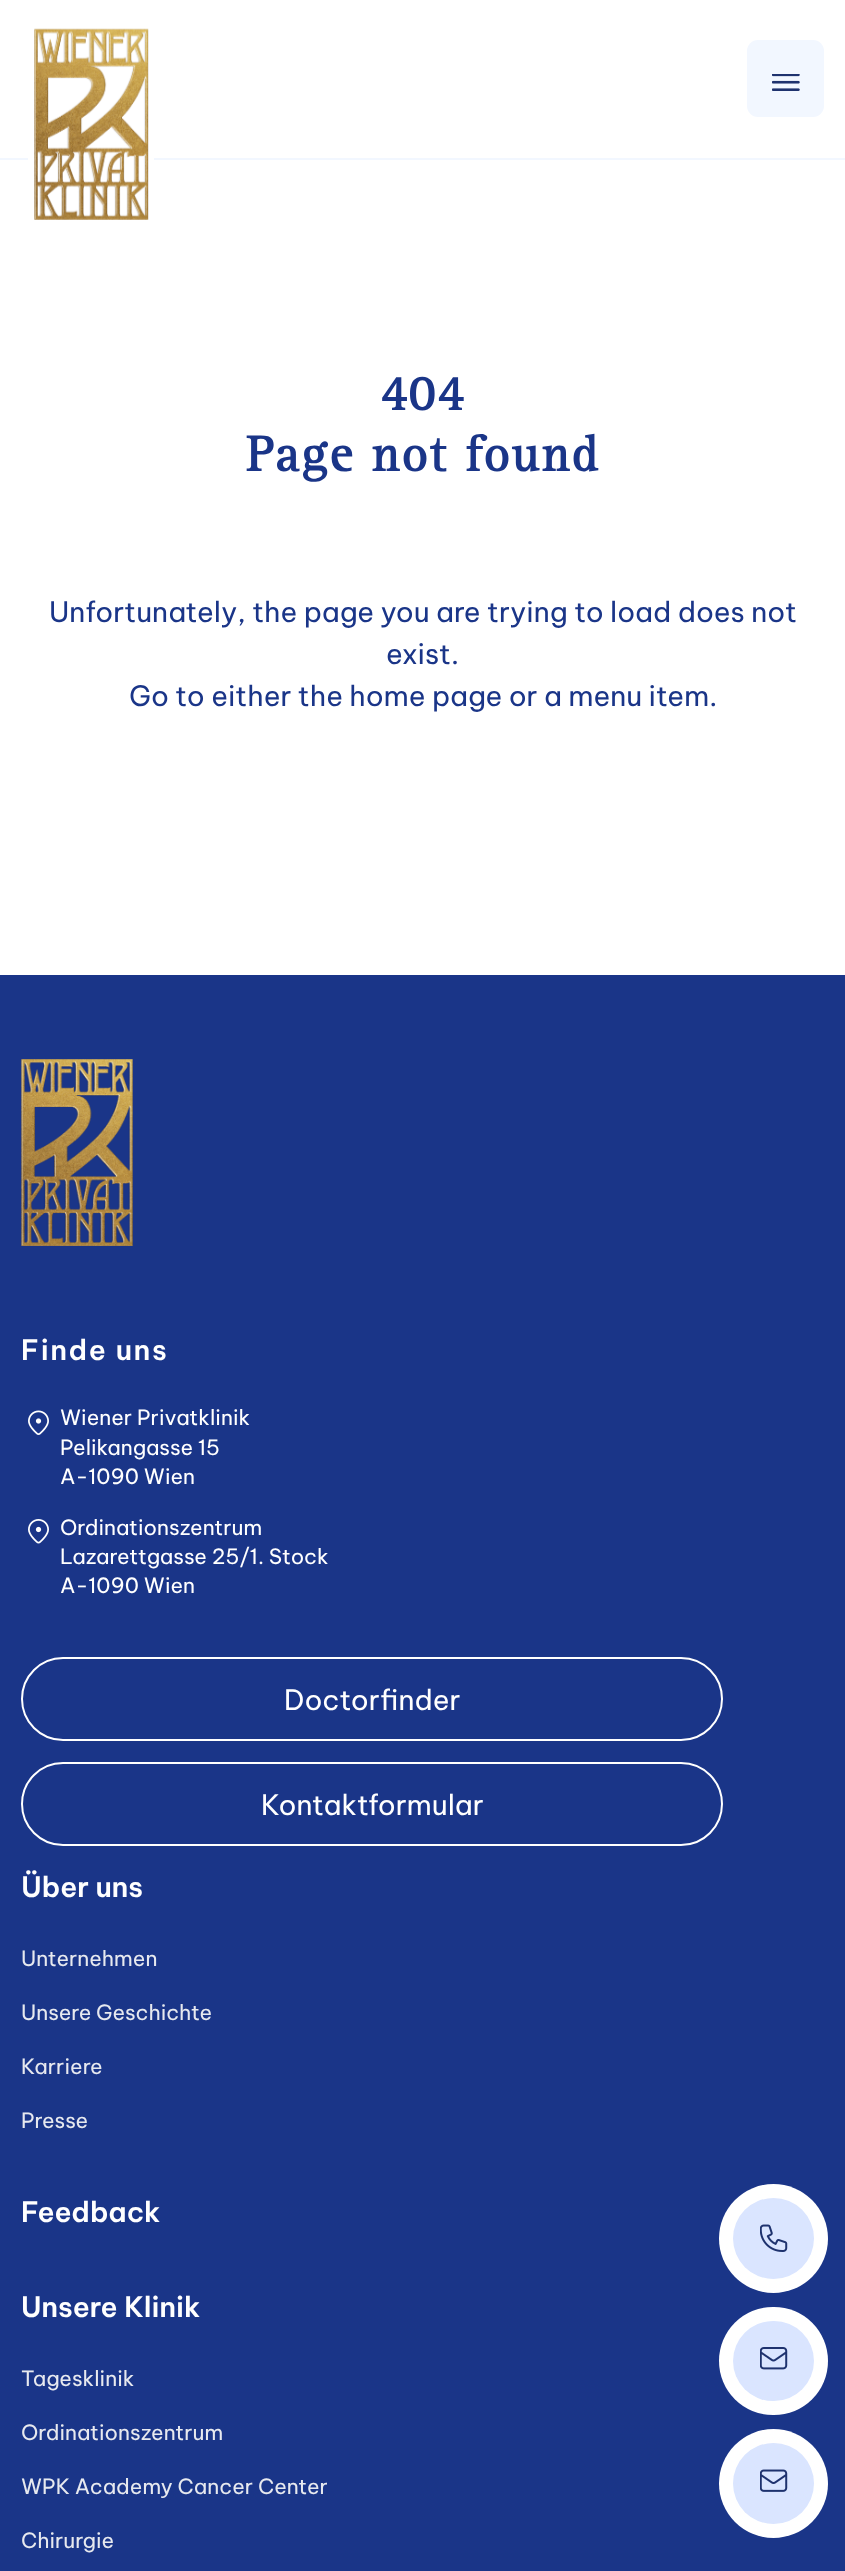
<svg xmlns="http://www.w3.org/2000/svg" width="845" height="2571">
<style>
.a{font:bold 51.25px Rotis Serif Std;letter-spacing:1.75px;fill:#1a3588}
.b{font:28px Be Vietnam Pro;fill:#1a3588}
.c{font:600 28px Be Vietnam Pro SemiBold;letter-spacing:1.75px;fill:#fff}
.d{font:21px Be Vietnam Pro;fill:#fff}
.e{font:28px Be Vietnam Pro;fill:#fff}
.f{font:600 28px Be Vietnam Pro SemiBold;fill:#fff}
.g{font:21px Be Vietnam Pro;fill:#e7e9ef}
</style>
<rect width="100%" height="100%" fill="#fff"/>
<path fill="#f2f7ff" d="M0 158h845v2H0z"/>
<image href="1.png" x="28" y="28" width="126" height="192"/>
<rect fill="#f2f7ff" x="747" y="40" width="77" height="77" rx="11"/>
<image href="2.png" x="772" y="74" width="28" height="17"/>
<path fill="#1a3588" d="M0 975h845v1596H0z"/>
<image href="3.png" x="21" y="1059" width="112" height="187"/>
<image href="4.png" x="28" y="1410" width="21" height="25"/>
<image href="5.png" x="28" y="1519" width="21" height="25"/>
<rect fill="none" stroke="#fff" stroke-width="2" x="22" y="1658" width="700" height="82" rx="41"/>
<rect fill="none" stroke="#fff" stroke-width="2" x="22" y="1763" width="700" height="82" rx="41"/>
<circle fill="#fff" cx="773.5" cy="2238.5" r="54.5"/>
<circle fill="#dae5ff" cx="773.5" cy="2238.5" r="40.5"/>
<image href="6.png" x="760" y="2224" width="28" height="28"/>
<rect fill="#fff" x="719" y="2307" width="109" height="108" rx="54"/>
<rect fill="#dae5ff" x="733" y="2321" width="81" height="80" rx="40"/>
<image href="7.png" x="760" y="2347" width="28" height="23"/>
<circle fill="#fff" cx="773.5" cy="2483.5" r="54.5"/>
<circle fill="#dae5ff" cx="773.5" cy="2483.5" r="40.5"/>
<image href="8.png" x="760" y="2469" width="28" height="23"/>
<text class="a" x="380" y="410">404</text>
<text class="a" x="246" y="471">Page not found</text>
<text class="b" x="49" y="622">Unfortunately, the page you are trying to load does not</text>
<text class="b" x="386" y="664">exist.</text>
<text class="b" x="129" y="706">Go to either the home page or a menu item.</text>
<text class="c" x="21" y="1360">Finde uns</text>
<text class="d" x="60" y="1425">Wiener Privatklinik</text>
<text class="d" x="60" y="1455">Pelikangasse 15</text>
<text class="d" x="60" y="1484">A-1090 Wien</text>
<text class="d" x="60" y="1535">Ordinationszentrum</text>
<text class="d" x="60" y="1564">Lazarettgasse 25/1. Stock</text>
<text class="d" x="60" y="1593">A-1090 Wien</text>
<text class="e" x="284" y="1710">Doctorfinder</text>
<text class="e" x="261" y="1815">Kontaktformular</text>
<text class="f" x="21" y="1897">Über uns</text>
<text class="g" x="21" y="1966">Unternehmen</text>
<text class="g" x="21" y="2020">Unsere Geschichte</text>
<text class="g" x="21" y="2074">Karriere</text>
<text class="g" x="21" y="2128">Presse</text>
<text class="f" x="21" y="2222">Feedback</text>
<text class="f" x="21" y="2317">Unsere Klinik</text>
<text class="g" x="21" y="2386">Tagesklinik</text>
<text class="g" x="21" y="2440">Ordinationszentrum</text>
<text class="g" x="21" y="2494">WPK Academy Cancer Center</text>
<text class="g" x="21" y="2548">Chirurgie</text>
</svg>
